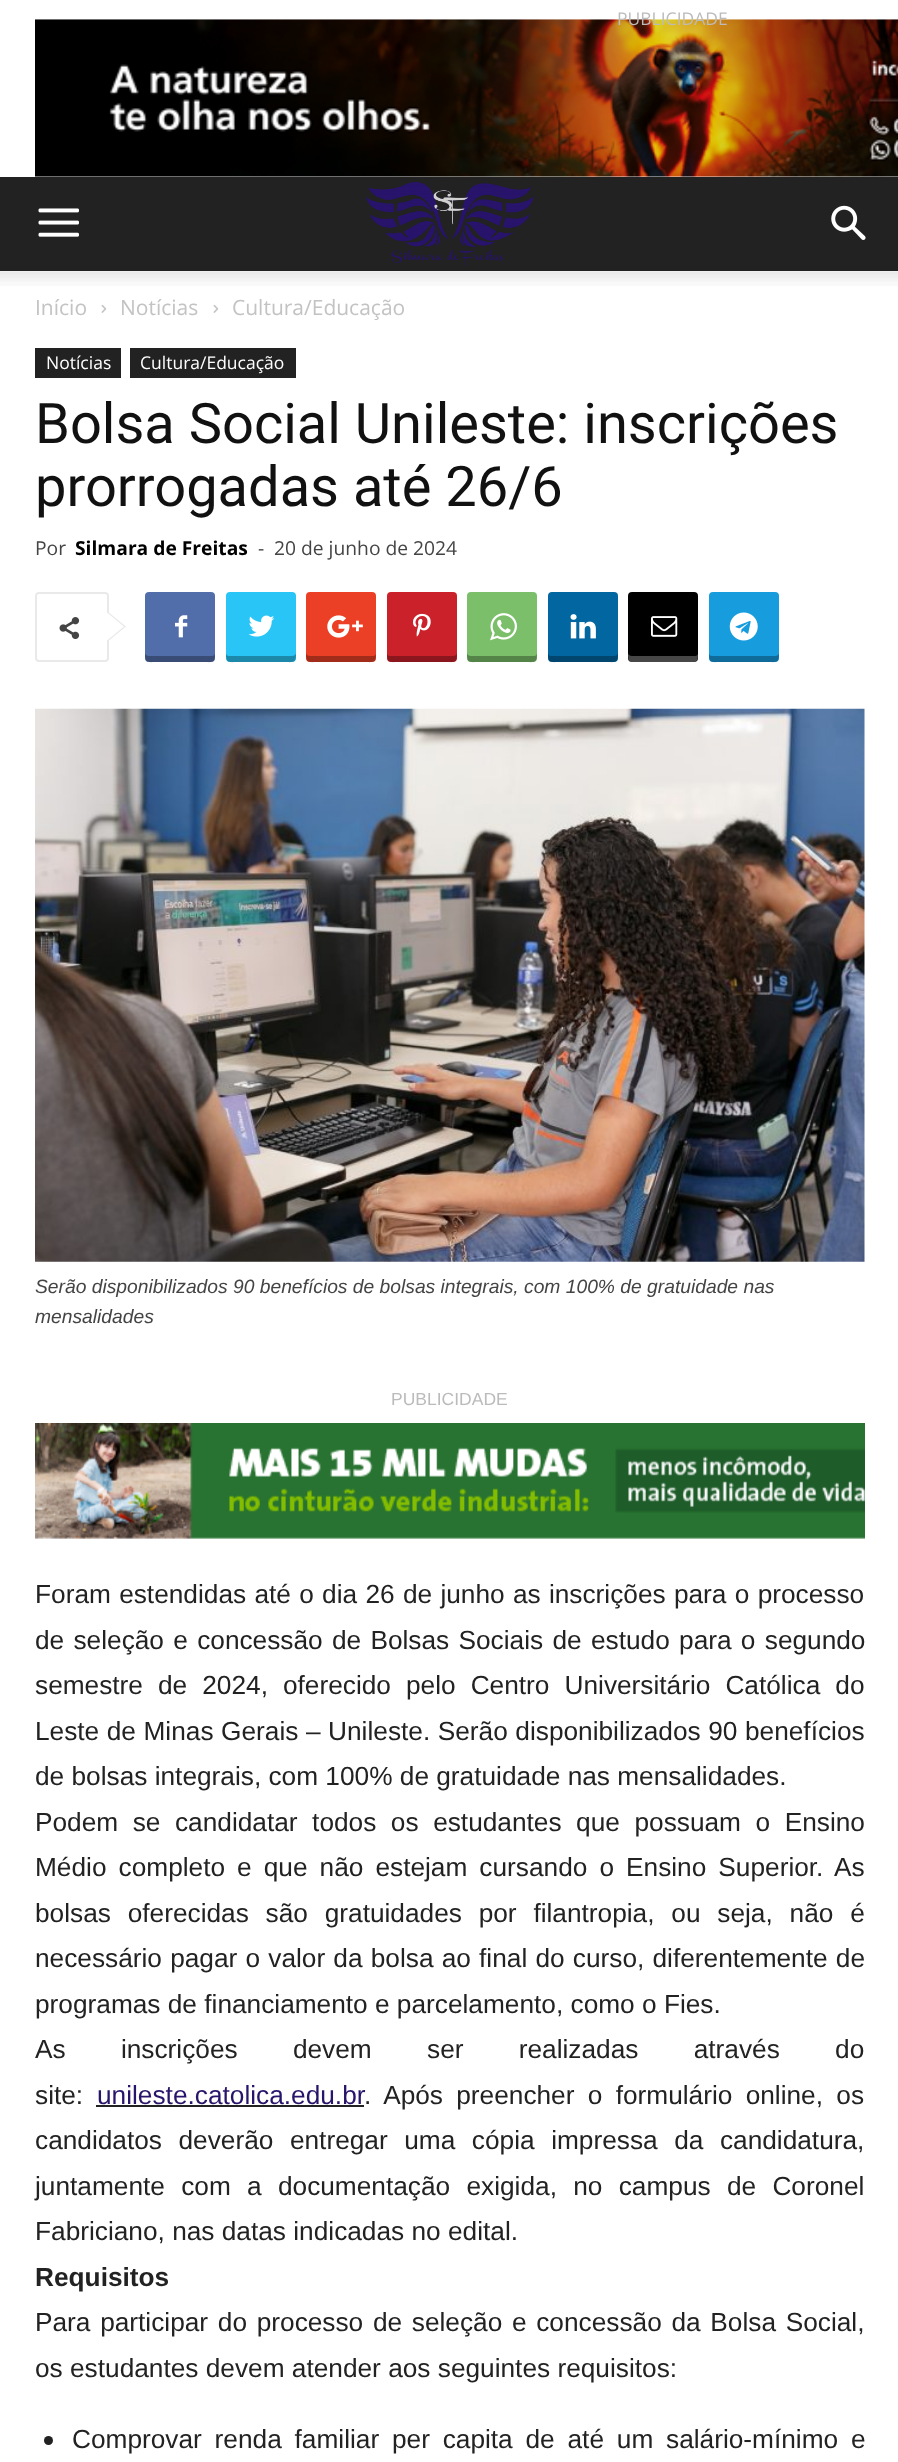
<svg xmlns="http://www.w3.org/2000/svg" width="898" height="2462">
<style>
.a{font:17.5px Open Sans;fill:#bbb}
.b{font:21px Open Sans;fill:#c3c3c3}
.c{font:17.5px Open Sans;fill:#fff}
.d{font:56px Roboto;fill:#111}
.e{font:19.25px Open Sans;fill:#444}
.f{font:bold 19.25px Open Sans;fill:#000}
.g{font:italic 19.25px Liberation Sans;fill:#444}
.h{font:17.5px Liberation Sans;fill:#bbb}
.i{font:26.25px Liberation Sans;fill:#222}
.j{font:26.25px Liberation Sans;fill:#28146b}
.k{font:bold 26.25px Liberation Sans;fill:#222}
</style>
<rect width="100%" height="100%" fill="#fff"/>
<image href="1.png" x="35" y="19" width="863" height="158"/>
<path fill="#222" d="M0 177h898v94H0z"/>
<image href="2.png" x="38" y="208" width="41" height="29"/>
<image href="3.png" x="365" y="182" width="169" height="84"/>
<image href="4.png" x="831" y="205" width="35" height="35"/>
<image href="5.png" x="0" y="271" width="898" height="15"/>
<image href="6.png" x="101" y="304" width="6" height="9"/>
<image href="6.png" x="213" y="304" width="6" height="9"/>
<path fill="#222" d="M35 348h86v30H35z"/>
<path fill="#222" d="M130 348h166v30H130z"/>
<rect fill="none" stroke="#e9e9e9" stroke-width="2" x="36" y="593" width="72" height="68" rx="3"/>
<path fill="#e9e9e9" d="M107 642v-31l19 15.5z"/>
<image href="7.png" x="59" y="617" width="21" height="22"/>
<path fill="#fff" d="M107 640.5v-28l17 14z"/>
<rect fill="#516eab" x="145" y="592" width="70" height="70" rx="4"/>
<path fill="#0000004f" d="M145 653c0 11 2 9 14 9h42c12 0 14 2 14-9c0 2-1 3-3 3h-63c-2 0-4-1-4-3z"/>
<image href="8.png" x="175" y="615" width="13" height="23"/>
<rect fill="#29c5f6" x="226" y="592" width="70" height="70" rx="4"/>
<path fill="#0000004f" d="M226 653c0 11 2 9 14 9h42c12 0 14 2 14-9c0 2-2 3-4 3h-63c-2 0-3-1-3-3z"/>
<image href="9.png" x="248" y="615" width="27" height="22"/>
<rect fill="#eb4026" x="306" y="592" width="70" height="70" rx="4"/>
<path fill="#0000004f" d="M306 653c0 11 2 9 14 9h42c12 0 14 2 14-9c0 2-1 3-3 3h-63c-2 0-4-1-4-3z"/>
<image href="10.png" x="327" y="615" width="36" height="23"/>
<rect fill="#ca212a" x="387" y="592" width="70" height="70" rx="4"/>
<path fill="#0000004f" d="M387 653c0 11 2 9 14 9h42c12 0 14 2 14-9c0 2-2 3-4 3h-63c-2 0-3-1-3-3z"/>
<image href="11.png" x="413" y="613" width="18" height="24"/>
<rect fill="#7bbf6a" x="467" y="592" width="70" height="70" rx="4"/>
<path fill="#0000004f" d="M467 653c0 11 2 9 14 9h42c12 0 14 2 14-9c0 2-1 3-3 3h-63c-2 0-4-1-4-3z"/>
<image href="12.png" x="490" y="613" width="27" height="28"/>
<rect fill="#0266a0" x="548" y="592" width="70" height="70" rx="4"/>
<path fill="#0000004f" d="M548 653c0 11 2 9 14 9h42c12 0 14 2 14-9c0 2-2 3-4 3h-63c-2 0-3-1-3-3z"/>
<image href="13.png" x="570" y="614" width="26" height="25"/>
<rect fill="#000" x="628" y="592" width="70" height="70" rx="4"/>
<path fill="#ffffff47" d="M628 653c0 11 2 9 14 9h42c12 0 14 2 14-9c0 2-1 3-3 3h-63c-2 0-4-1-4-3z"/>
<image href="14.png" x="651" y="616" width="27" height="21"/>
<rect fill="#179cde" x="709" y="592" width="70" height="70" rx="4"/>
<path fill="#0000004f" d="M709 653c0 11 2 9 14 9h42c12 0 14 2 14-9c0 2-2 3-4 3h-63c-2 0-3-1-3-3z"/>
<image href="15.png" x="729" y="612" width="29" height="29"/>
<image href="16.png" x="35" y="708" width="830" height="554"/>
<image href="17.png" x="35" y="1423" width="830" height="116"/>
<path fill="#222" d="M96 2105h268v2H96z"/>
<circle fill="#222" cx="48.5" cy="2440.5" r="4.5"/>
<text class="a" x="617" y="25">PUBLICIDADE</text>
<text class="b" x="35" y="315">Início</text>
<text class="b" x="120" y="315">Notícias</text>
<text class="b" x="232" y="315">Cultura/Educação</text>
<text class="c" x="46" y="369">Notícias</text>
<text class="c" x="140" y="369">Cultura/Educação</text>
<text class="d" x="35" y="443">Bolsa Social Unileste: inscrições</text>
<text class="d" x="35" y="506">prorrogadas até 26/6</text>
<text class="e" x="35" y="555">Por</text>
<text class="f" x="75" y="555">Silmara de Freitas</text>
<text class="e" x="258" y="555">-</text>
<text class="e" x="274" y="555">20 de junho de 2024</text>
<text class="g" x="35" y="1293">Serão disponibilizados 90 benefícios de bolsas integrais, com 100% de gratuidade nas</text>
<text class="g" x="35" y="1323">mensalidades</text>
<text class="h" x="391" y="1405">PUBLICIDADE</text>
<text class="i" x="35" y="1603" word-spacing="1">Foram estendidas até o dia 26 de junho as inscrições para o processo</text>
<text class="i" x="35" y="1649" word-spacing="2">de seleção e concessão de Bolsas Sociais de estudo para o segundo</text>
<text class="i" x="35" y="1694" word-spacing="7.75">semestre de 2024, oferecido pelo Centro Universitário Católica do</text>
<text class="i" x="35" y="1740" word-spacing="0.25">Leste de Minas Gerais – Unileste. Serão disponibilizados 90 benefícios</text>
<text class="i" x="35" y="1785">de bolsas integrais, com 100% de gratuidade nas mensalidades.</text>
<text class="i" x="35" y="1831" word-spacing="7.25">Podem se candidatar todos os estudantes que possuam o Ensino</text>
<text class="i" x="35" y="1876" word-spacing="4.75">Médio completo e que não estejam cursando o Ensino Superior. As</text>
<text class="i" x="35" y="1922" word-spacing="9.5">bolsas oferecidas são gratuidades por filantropia, ou seja, não é</text>
<text class="i" x="35" y="1967" word-spacing="0.9">necessário pagar o valor da bolsa ao final do curso, diferentemente de</text>
<text class="i" x="35" y="2013">programas de financiamento e parcelamento, como o Fies.</text>
<text class="i" x="35" y="2058" word-spacing="48">As inscrições devem ser realizadas através do</text>
<text class="i" x="35" y="2104">site:</text>
<text class="j" x="97" y="2104">unileste.catolica.edu.br</text>
<text class="i" x="364" y="2104" word-spacing="6">. Após preencher o formulário online, os</text>
<text class="i" x="35" y="2149" word-spacing="9.25">candidatos deverão entregar uma cópia impressa da candidatura,</text>
<text class="i" x="35" y="2195" word-spacing="9">juntamente com a documentação exigida, no campus de Coronel</text>
<text class="i" x="35" y="2240">Fabriciano, nas datas indicadas no edital.</text>
<text class="k" x="35" y="2286">Requisitos</text>
<text class="i" x="35" y="2331" word-spacing="2.4">Para participar do processo de seleção e concessão da Bolsa Social,</text>
<text class="i" x="35" y="2377">os estudantes devem atender aos seguintes requisitos:</text>
<text class="i" x="72" y="2448" word-spacing="5.5">Comprovar renda familiar per capita de até um salário-mínimo e</text>
</svg>
